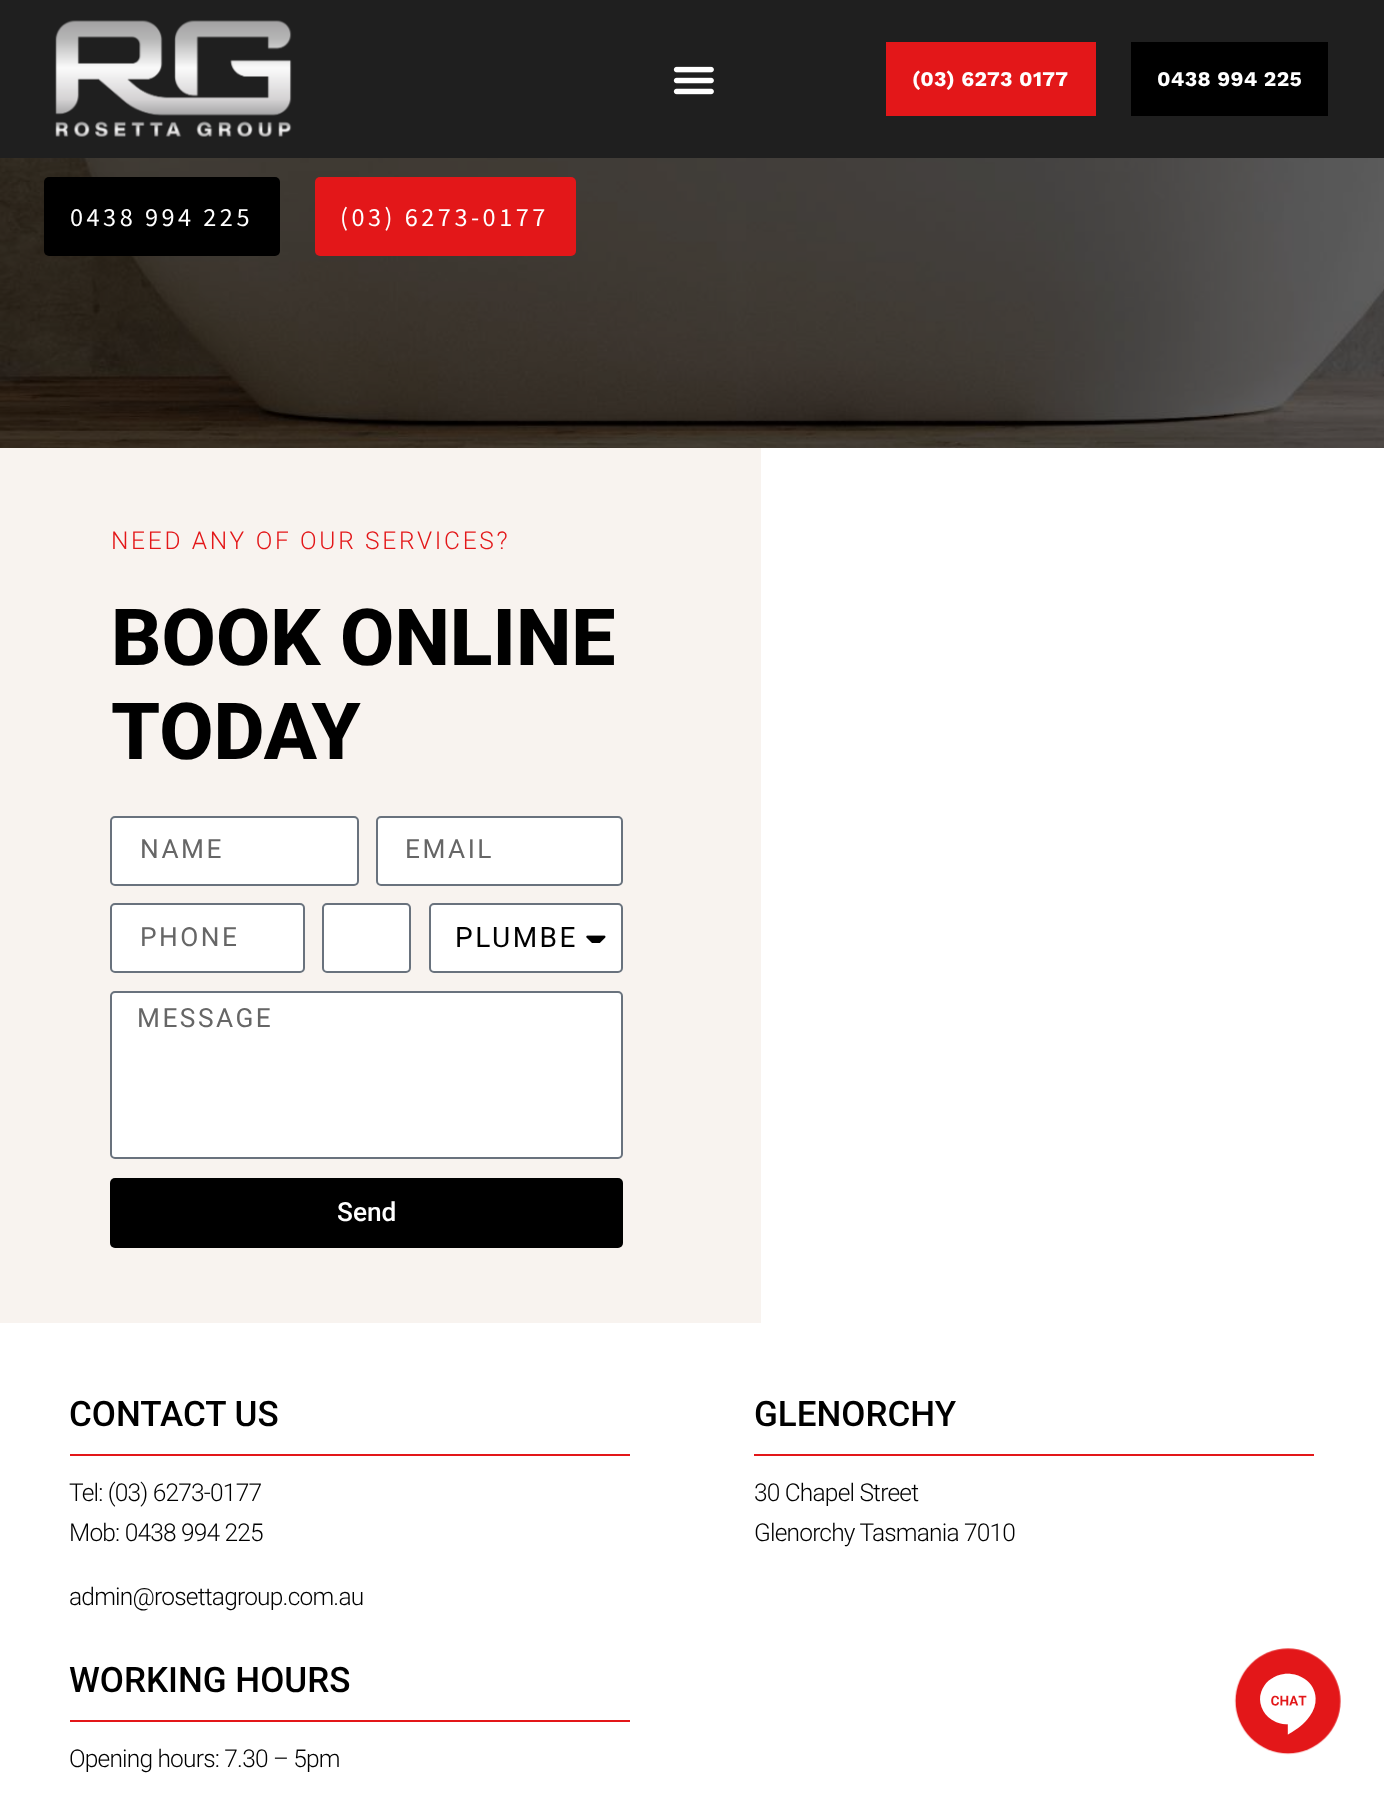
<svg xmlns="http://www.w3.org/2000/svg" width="1384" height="1796">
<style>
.a{font:bold 21px Work Sans;letter-spacing:0.3px;fill:#fff}
.b{font:26.25px Source Sans Pro;letter-spacing:3.5px;fill:#fff}
.c{font:300 24.5px Roboto;letter-spacing:2.7px;fill:#e31719}
.d{font:800 78.75px Roboto;fill:#000}
.e{font:26.25px Roboto;letter-spacing:2.5px;fill:#666}
.f{font:28px Roboto;letter-spacing:2.5px;fill:#000}
.g{font:500 26.25px Roboto;fill:#fff}
.h{font:500 35px Roboto;fill:#000}
.i{font:300 24.5px Roboto;letter-spacing:-0.8px;fill:#000}
</style>
<rect width="100%" height="100%" fill="#fff"/>
<path fill="#1f1f1f" d="M0 0h1384v158H0z"/>
<image href="1.png" x="55" y="20" width="237" height="117"/>
<image href="2.png" x="673" y="66" width="41" height="29"/>
<path fill="#e31719" d="M886 42h210v74H886z"/>
<path fill="#000" d="M1131 42h197v74H1131z"/>
<image href="3.png" x="0" y="158" width="1384" height="290"/>
<rect fill="#000" x="44" y="177" width="236" height="79" rx="5"/>
<rect fill="#e31719" x="315" y="177" width="261" height="79" rx="5"/>
<path fill="#f8f3ef" d="M0 448h761v875H0z"/>
<rect fill="#fff" stroke="#69727d" stroke-width="2" x="111" y="817" width="247" height="68" rx="4"/>
<rect fill="#fff" stroke="#69727d" stroke-width="2" x="377" y="817" width="245" height="68" rx="4"/>
<rect fill="#fff" stroke="#69727d" stroke-width="2" x="111" y="904" width="193" height="68" rx="4"/>
<rect fill="#fff" stroke="#69727d" stroke-width="2" x="323" y="904" width="87" height="68" rx="4"/>
<rect fill="#fff" stroke="#69727d" stroke-width="2" x="430" y="904" width="192" height="68" rx="4"/>
<image href="4.png" x="586" y="935" width="20" height="8"/>
<rect fill="#fff" stroke="#69727d" stroke-width="2" x="111" y="992" width="511" height="166" rx="4"/>
<rect fill="#000" x="110" y="1178" width="513" height="70" rx="5"/>
<path fill="#e31719" d="M70 1454h560v2H70z"/>
<path fill="#e31719" d="M70 1720h560v2H70z"/>
<path fill="#e31719" d="M754 1454h560v2H754z"/>
<image href="5.png" x="1234" y="1648" width="107" height="107"/>
<text class="a" x="912" y="86">(03) 6273 0177</text>
<text class="a" x="1157" y="86">0438 994 225</text>
<text class="b" x="70" y="226">0438 994 225</text>
<text class="b" x="340" y="226">(03) 6273-0177</text>
<text class="c" x="111" y="549">NEED ANY OF OUR SERVICES?</text>
<text class="d" x="111" y="665">BOOK ONLINE</text>
<text class="d" x="111" y="759">TODAY</text>
<text class="e" x="140" y="858">NAME</text>
<text class="e" x="405" y="858">EMAIL</text>
<text class="e" x="140" y="946">PHONE</text>
<text class="f" x="455" y="947">PLUMBE</text>
<text class="e" x="137" y="1027">MESSAGE</text>
<text class="g" x="337" y="1221">Send</text>
<text class="h" x="69" y="1426">CONTACT US</text>
<text class="i" x="69" y="1501">Tel: (03) 6273-0177</text>
<text class="i" x="69" y="1541">Mob: 0438 994 225</text>
<text class="i" x="69" y="1605">admin@rosettagroup.com.au</text>
<text class="h" x="69" y="1692">WORKING HOURS</text>
<text class="i" x="69" y="1767">Opening hours: 7.30 – 5pm</text>
<text class="h" x="754" y="1426">GLENORCHY</text>
<text class="i" x="754" y="1501">30 Chapel Street</text>
<text class="i" x="754" y="1541">Glenorchy Tasmania 7010</text>
</svg>
